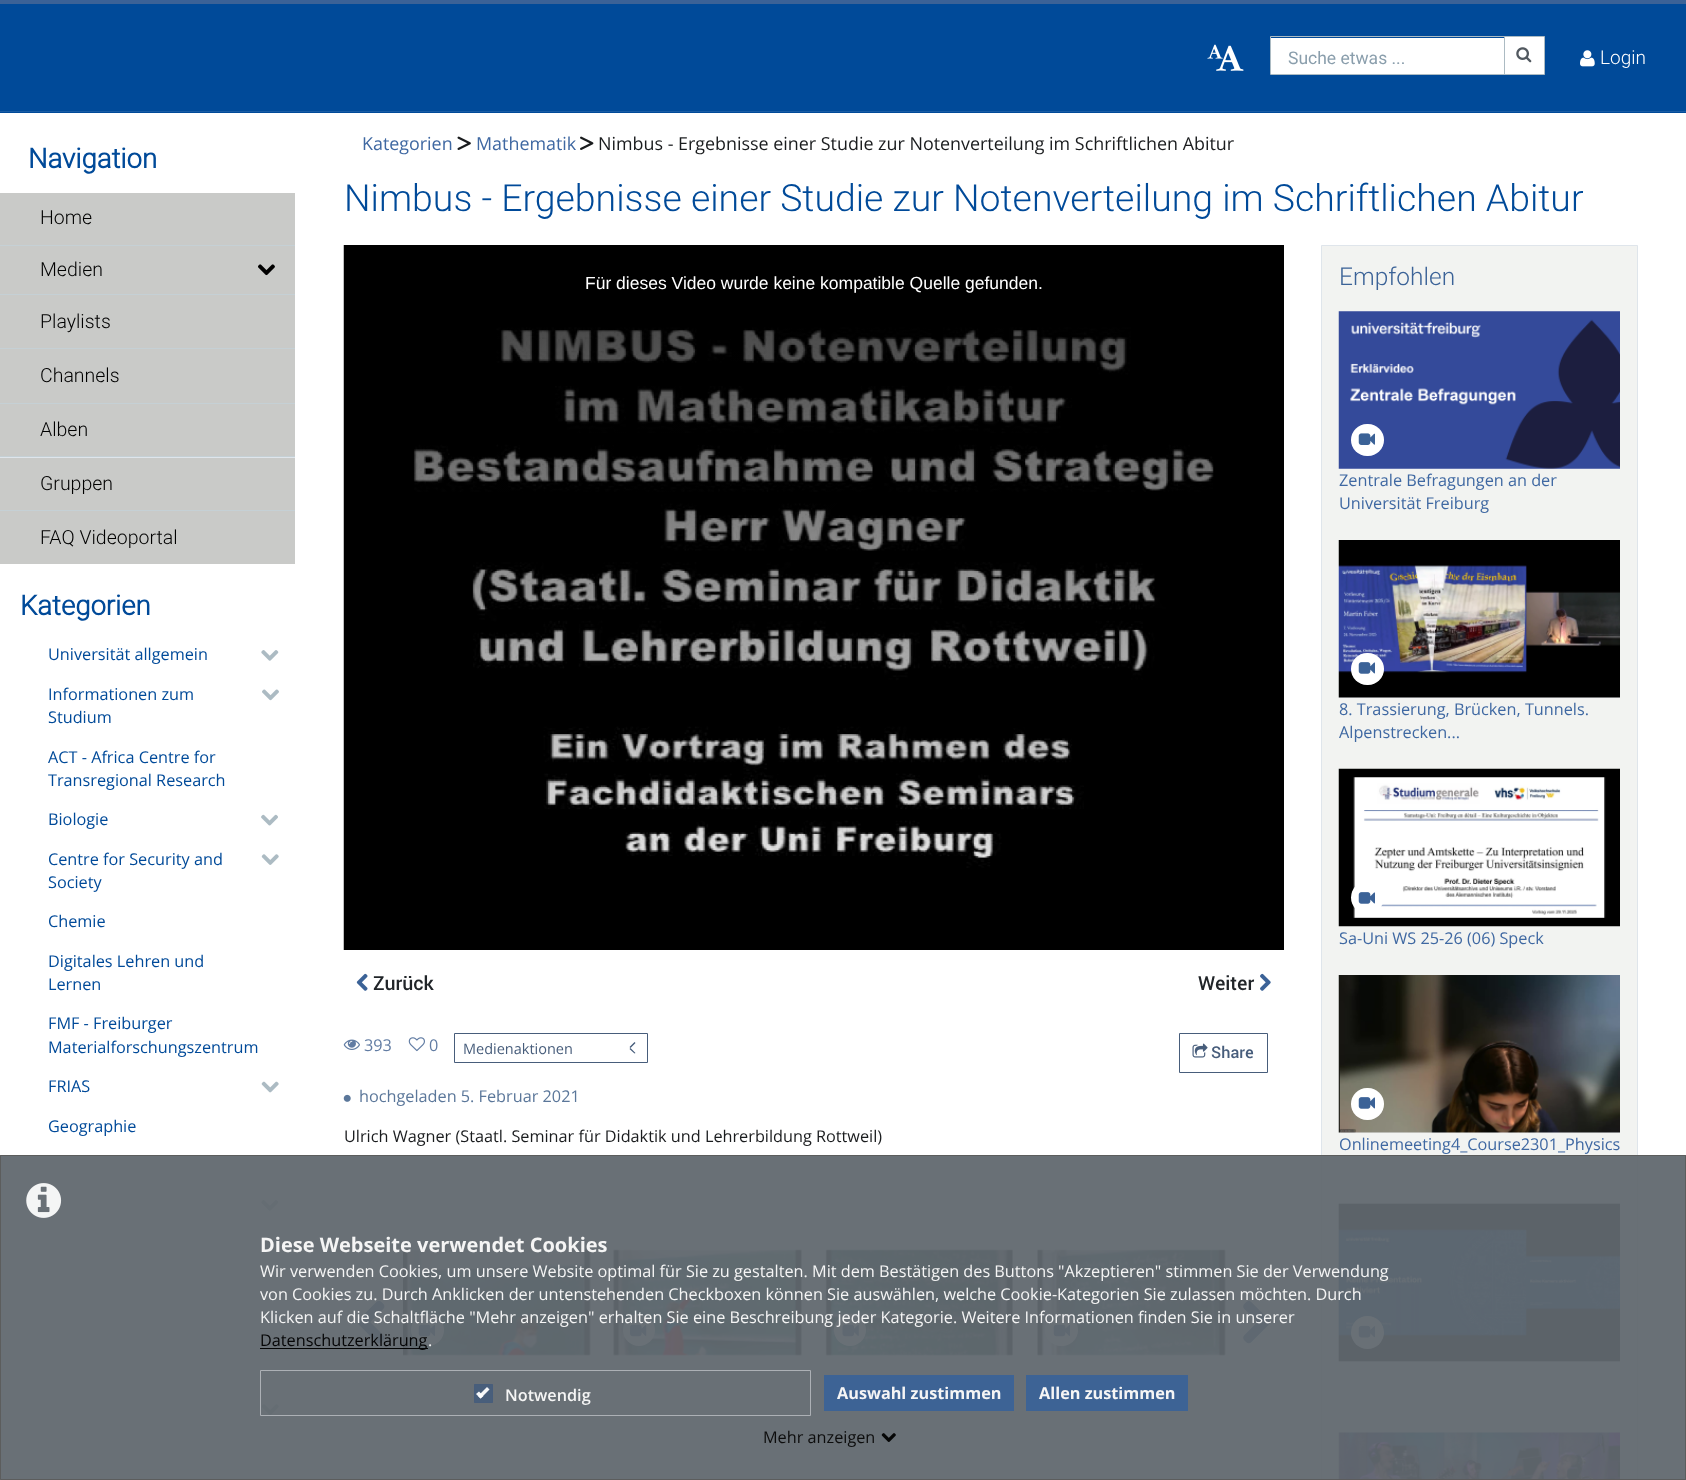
<svg xmlns="http://www.w3.org/2000/svg" width="1686" height="1480">
<style>
.a{font:17.5px Roboto;fill:#8a9eac}
.b{font:300 19px Roboto;fill:#fff}
.c{font:bold 27.5px Roboto;fill:#004a99}
.d{font:300 19.5px Roboto;fill:#000}
.e{font:16.25px Open Sans;fill:#004a99}
.f{font:17.9px Open Sans;fill:#3f68a2}
.g{font:17.9px Open Sans;fill:#1a1c1e}
.h{font:300 37.4px Roboto;fill:#004a99}
.i{font:17.5px Liberation Sans;fill:#fff}
.j{font:500 19.5px Roboto;fill:#212529}
.k{font:300 24.5px Roboto;fill:#3b6297}
.l{font:16.25px Open Sans;fill:#3f68a2}
.m{font:16.25px Open Sans;fill:#617ca3}
.n{font:14.5px Open Sans;fill:#475d7b}
.o{font:500 16.25px Roboto;fill:#475d7b}
.p{font:16.25px Open Sans;fill:#5b779a}
.q{font:16.25px Open Sans;fill:#1a1c1e}
.r{font:bold 20px Open Sans;fill:#f5f5f5}
.s{font:16.25px Open Sans;fill:#f5f5f5}
.t{font:16.25px Open Sans;fill:#050506}
.u{font:600 16.25px Open Sans;fill:#f5f5f5}
.v{font:bold 16.25px Open Sans;fill:#f5f5f5}
.w{font:16.25px Open Sans;fill:#0d0d0d}
</style>
<defs>
<linearGradient id="g1" gradientUnits="userSpaceOnUse" x1="814" y1="245" x2="814" y2="950"><stop offset="0" stop-color="#000" stop-opacity="0.8"/><stop offset="1" stop-color="#000" stop-opacity="0"/></linearGradient>
</defs>
<rect width="100%" height="100%" fill="#fff"/>
<path fill="#004a99" d="M0 4h1686v109H0z"/>
<path fill="#1a5ca3" d="M0 111h1686v1H0z"/>
<path fill="#3b6297" d="M0 0h1686v4H0z"/>
<image href="1.png" x="1207" y="44" width="16" height="15"/>
<image href="2.png" x="1216" y="45" width="28" height="26"/>
<path fill="#fff" d="M1271 38h233v36H1271z"/>
<path fill="none" stroke="#acbbc3" d="M1270.5 36.5h234v38H1270.5z"/>
<path fill="#fff" stroke="#acbbc3" d="M1504.5 36.5h40v38H1504.5z"/>
<image href="3.png" x="1516" y="47" width="16" height="16"/>
<image href="4.png" x="1580" y="50" width="15" height="17"/>
<path fill="#c9cac8" d="M0 193h295v52H0z"/>
<path fill="#c5d0d5" d="M0 245h295v1H0z"/>
<path fill="#c9cac8" d="M0 246h295v48H0z"/>
<image href="5.png" x="258" y="264" width="17" height="12"/>
<path fill="#c5d0d5" d="M0 294h295v1H0z"/>
<path fill="#c9cac8" d="M0 295h295v53H0z"/>
<path fill="#c5d0d5" d="M0 348h295v1H0z"/>
<path fill="#c9cac8" d="M0 349h295v54H0z"/>
<path fill="#c5d0d5" d="M0 403h295v1H0z"/>
<path fill="#c9cac8" d="M0 404h295v52H0z"/>
<path fill="#dfe5eb" d="M0 457h295v1H0z"/>
<path fill="#c5d0d5" d="M0 456h295v1H0z"/>
<path fill="#c9cac8" d="M0 458h295v52H0z"/>
<path fill="#c5d0d5" d="M0 510h295v1H0z"/>
<path fill="#c9cac8" d="M0 511h295v53H0z"/>
<image href="6.png" x="261" y="650" width="18" height="11"/>
<image href="7.png" x="262" y="689" width="17" height="12"/>
<image href="8.png" x="261" y="814" width="17" height="12"/>
<image href="9.png" x="261" y="854" width="18" height="11"/>
<image href="10.png" x="261" y="1081" width="18" height="12"/>
<image href="6.png" x="261" y="1200" width="18" height="11"/>
<image href="9.png" x="261" y="1404" width="18" height="11"/>
<image href="11.png" x="457" y="136" width="14" height="14"/>
<image href="12.png" x="580" y="136" width="14" height="14"/>
<path fill="#000" d="M1214 245h70v705H1214z"/>
<image href="13.png" x="343" y="245" width="871" height="705"/>
<path fill="url(#g1)" d="M413 327h801v531H413z"/>
<image href="14.png" x="356" y="973" width="12" height="18"/>
<image href="15.png" x="1260" y="973" width="11" height="18"/>
<path fill="#f2f3f1" stroke="#dfe5eb" d="M1321.5 245.5h316v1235H1321.5z"/>
<image href="16.png" x="1338" y="311" width="282" height="158"/>
<rect fill="#fff" x="1351" y="424" width="33" height="32" rx="16"/>
<image href="17.png" x="1358" y="433" width="17" height="12"/>
<path fill="#eceff2" d="M1339 697h281v1H1339z"/>
<image href="18.png" x="1338" y="540" width="282" height="158"/>
<rect fill="#fff" x="1351" y="653" width="33" height="32" rx="16"/>
<image href="19.png" x="1358" y="662" width="17" height="12"/>
<image href="20.png" x="1338" y="768" width="282" height="159"/>
<circle fill="#fff" cx="1367.5" cy="897.5" r="16.5"/>
<image href="19.png" x="1358" y="892" width="17" height="12"/>
<path fill="#eceff2" d="M1339 1132h281v1H1339z"/>
<image href="21.png" x="1338" y="975" width="282" height="158"/>
<rect fill="#fff" x="1351" y="1088" width="33" height="32" rx="16"/>
<image href="19.png" x="1358" y="1097" width="17" height="12"/>
<image href="22.png" x="1338" y="1203" width="282" height="159"/>
<circle fill="#fff" cx="1367.5" cy="1332.5" r="16.5"/>
<image href="23.png" x="1358" y="1325" width="17" height="13"/>
<image href="24.png" x="1338" y="1432" width="282" height="48"/>
<image href="25.png" x="343" y="1039" width="17" height="11"/>
<image href="26.png" x="408" y="1037" width="17" height="15"/>
<path fill="none" stroke="#475d7b" d="M454.5 1033.5h193v29H454.5z"/>
<path fill="#475d7b" d="M630.5 1048l5 5l-1 .5l-5-4.5zm4-6l1 1l-5 5l-1-1z"/>
<path fill="none" stroke="#475d7b" d="M1179.5 1033.5h88v39H1179.5z"/>
<image href="27.png" x="1192" y="1043" width="16" height="15"/>
<image href="28.png" x="343" y="1094" width="8" height="8"/>
<image href="29.png" x="357" y="1300" width="28" height="44"/>
<path fill="#eceff2" d="M403 1250h187v105H403z"/>
<image href="30.png" x="403" y="1249" width="188" height="107"/>
<rect fill="#fff" x="411" y="1314" width="33" height="32" rx="16"/>
<image href="31.png" x="418" y="1324" width="17" height="13"/>
<image href="32.png" x="613" y="1249" width="189" height="107"/>
<circle fill="#fff" cx="639" cy="1330" r="16"/>
<image href="33.png" x="630" y="1324" width="17" height="13"/>
<path fill="#eceff2" d="M826 1250h187v105H826z"/>
<image href="34.png" x="825" y="1249" width="188" height="107"/>
<circle fill="#fff" cx="850" cy="1330" r="16"/>
<image href="35.png" x="842" y="1324" width="17" height="13"/>
<path fill="#eceff2" d="M1038 1250h187v105H1038z"/>
<image href="36.png" x="1037" y="1249" width="189" height="107"/>
<rect fill="#fff" x="1045" y="1314" width="33" height="32" rx="16"/>
<image href="31.png" x="1053" y="1324" width="17" height="13"/>
<image href="37.png" x="1243" y="1300" width="27" height="44"/>
<path fill="#61686ff2" d="M0 1155h1686v325H0z"/>
<path fill="none" stroke="#5c5c5cf2" d="M0.5 1155.5h1685v324H0.5z"/>
<image href="38.png" x="26" y="1183" width="36" height="35"/>
<path fill="#000000f2" d="M260 1348h168v1H260z"/>
<path fill="none" stroke="#b0b3b8f2" d="M260.5 1370.5h550v45H260.5z"/>
<path fill="#76767647" d="M475 1385h17v17H475z"/>
<path fill="none" stroke="#fffffff2" stroke-width="3" d="M477.5 1393l3.5 4l8-9.5"/>
<path fill="#475d7bf2" stroke="#475d7b" d="M474.5 1384.5h18v18H474.5z"/>
<path fill="#fffffff2" d="M487 1387l2.5 2.5l-9 9l-2.5-2.5z"/>
<path fill="#fffffff2" d="M479 1391.5l4.5 4.5l-3 2.5l-4.5-4.5z"/>
<path fill="#3b6297f2" d="M824 1375h190v36H824z"/>
<path fill="#3b6297f2" d="M1026 1375h162v36H1026z"/>
<image href="39.png" x="881" y="1433" width="15" height="9"/>
<text class="a" x="1288" y="64">Suche etwas ...</text>
<text class="b" x="1600" y="64">Login</text>
<text class="c" x="28" y="168">Navigation</text>
<text class="d" x="40" y="224">Home</text>
<text class="d" x="40" y="276">Medien</text>
<text class="d" x="40" y="328">Playlists</text>
<text class="d" x="40" y="382">Channels</text>
<text class="d" x="40" y="436">Alben</text>
<text class="d" x="40" y="490">Gruppen</text>
<text class="d" x="40" y="544">FAQ Videoportal</text>
<text class="c" x="20" y="615">Kategorien</text>
<text class="e" x="48" y="660">Universität allgemein</text>
<text class="e" x="48" y="700">Informationen zum</text>
<text class="e" x="48" y="723">Studium</text>
<text class="e" x="48" y="763">ACT - Africa Centre for</text>
<text class="e" x="48" y="786">Transregional Research</text>
<text class="e" x="48" y="825">Biologie</text>
<text class="e" x="48" y="865">Centre for Security and</text>
<text class="e" x="48" y="888">Society</text>
<text class="e" x="48" y="927">Chemie</text>
<text class="e" x="48" y="967">Digitales Lehren und</text>
<text class="e" x="48" y="990">Lernen</text>
<text class="e" x="48" y="1029">FMF - Freiburger</text>
<text class="e" x="48" y="1053">Materialforschungszentrum</text>
<text class="e" x="48" y="1092">FRIAS</text>
<text class="e" x="48" y="1132">Geographie</text>
<text class="f" x="362" y="150">Kategorien</text>
<text class="f" x="476" y="150">Mathematik</text>
<text class="g" x="598" y="150">Nimbus - Ergebnisse einer Studie zur Notenverteilung im Schriftlichen Abitur</text>
<text class="h" x="344" y="211">Nimbus - Ergebnisse einer Studie zur Notenverteilung im Schriftlichen Abitur</text>
<text class="i" x="585" y="289">Für dieses Video wurde keine kompatible Quelle gefunden.</text>
<text class="j" x="373" y="990">Zurück</text>
<text class="j" x="1198" y="990">Weiter</text>
<text class="k" x="1339" y="285">Empfohlen</text>
<text class="l" x="1339" y="486">Zentrale Befragungen an der</text>
<text class="l" x="1339" y="509">Universität Freiburg</text>
<text class="l" x="1339" y="715">8. Trassierung, Brücken, Tunnels.</text>
<text class="l" x="1339" y="738">Alpenstrecken...</text>
<text class="l" x="1339" y="944">Sa-Uni WS 25-26 (06) Speck</text>
<text class="l" x="1339" y="1150">Onlinemeeting4_Course2301_Physics</text>
<text class="m" x="364" y="1051">393</text>
<text class="m" x="429" y="1051">0</text>
<text class="n" x="463" y="1054">Medienaktionen</text>
<text class="o" x="1211" y="1058">Share</text>
<text class="p" x="359" y="1102">hochgeladen 5. Februar 2021</text>
<text class="q" x="344" y="1142">Ulrich Wagner (Staatl. Seminar für Didaktik und Lehrerbildung Rottweil)</text>
<text class="r" x="260" y="1252">Diese Webseite verwendet Cookies</text>
<text class="s" x="260" y="1277">Wir verwenden Cookies, um unsere Website optimal für Sie zu gestalten. Mit dem Bestätigen des Buttons "Akzeptieren" stimmen Sie der Verwendung</text>
<text class="s" x="260" y="1300">von Cookies zu. Durch Anklicken der untenstehenden Checkboxen können Sie auswählen, welche Cookie-Kategorien Sie zulassen möchten. Durch</text>
<text class="s" x="260" y="1323">Klicken auf die Schaltfläche "Mehr anzeigen" erhalten Sie eine Beschreibung jeder Kategorie. Weitere Informationen finden Sie in unserer</text>
<text class="t" x="260" y="1346">Datenschutzerklärung</text>
<text class="s" x="428" y="1346">.</text>
<text class="u" x="505" y="1401">Notwendig</text>
<text class="v" x="837" y="1399">Auswahl zustimmen</text>
<text class="v" x="1039" y="1399">Allen zustimmen</text>
<text class="w" x="763" y="1443">Mehr anzeigen</text>
</svg>
